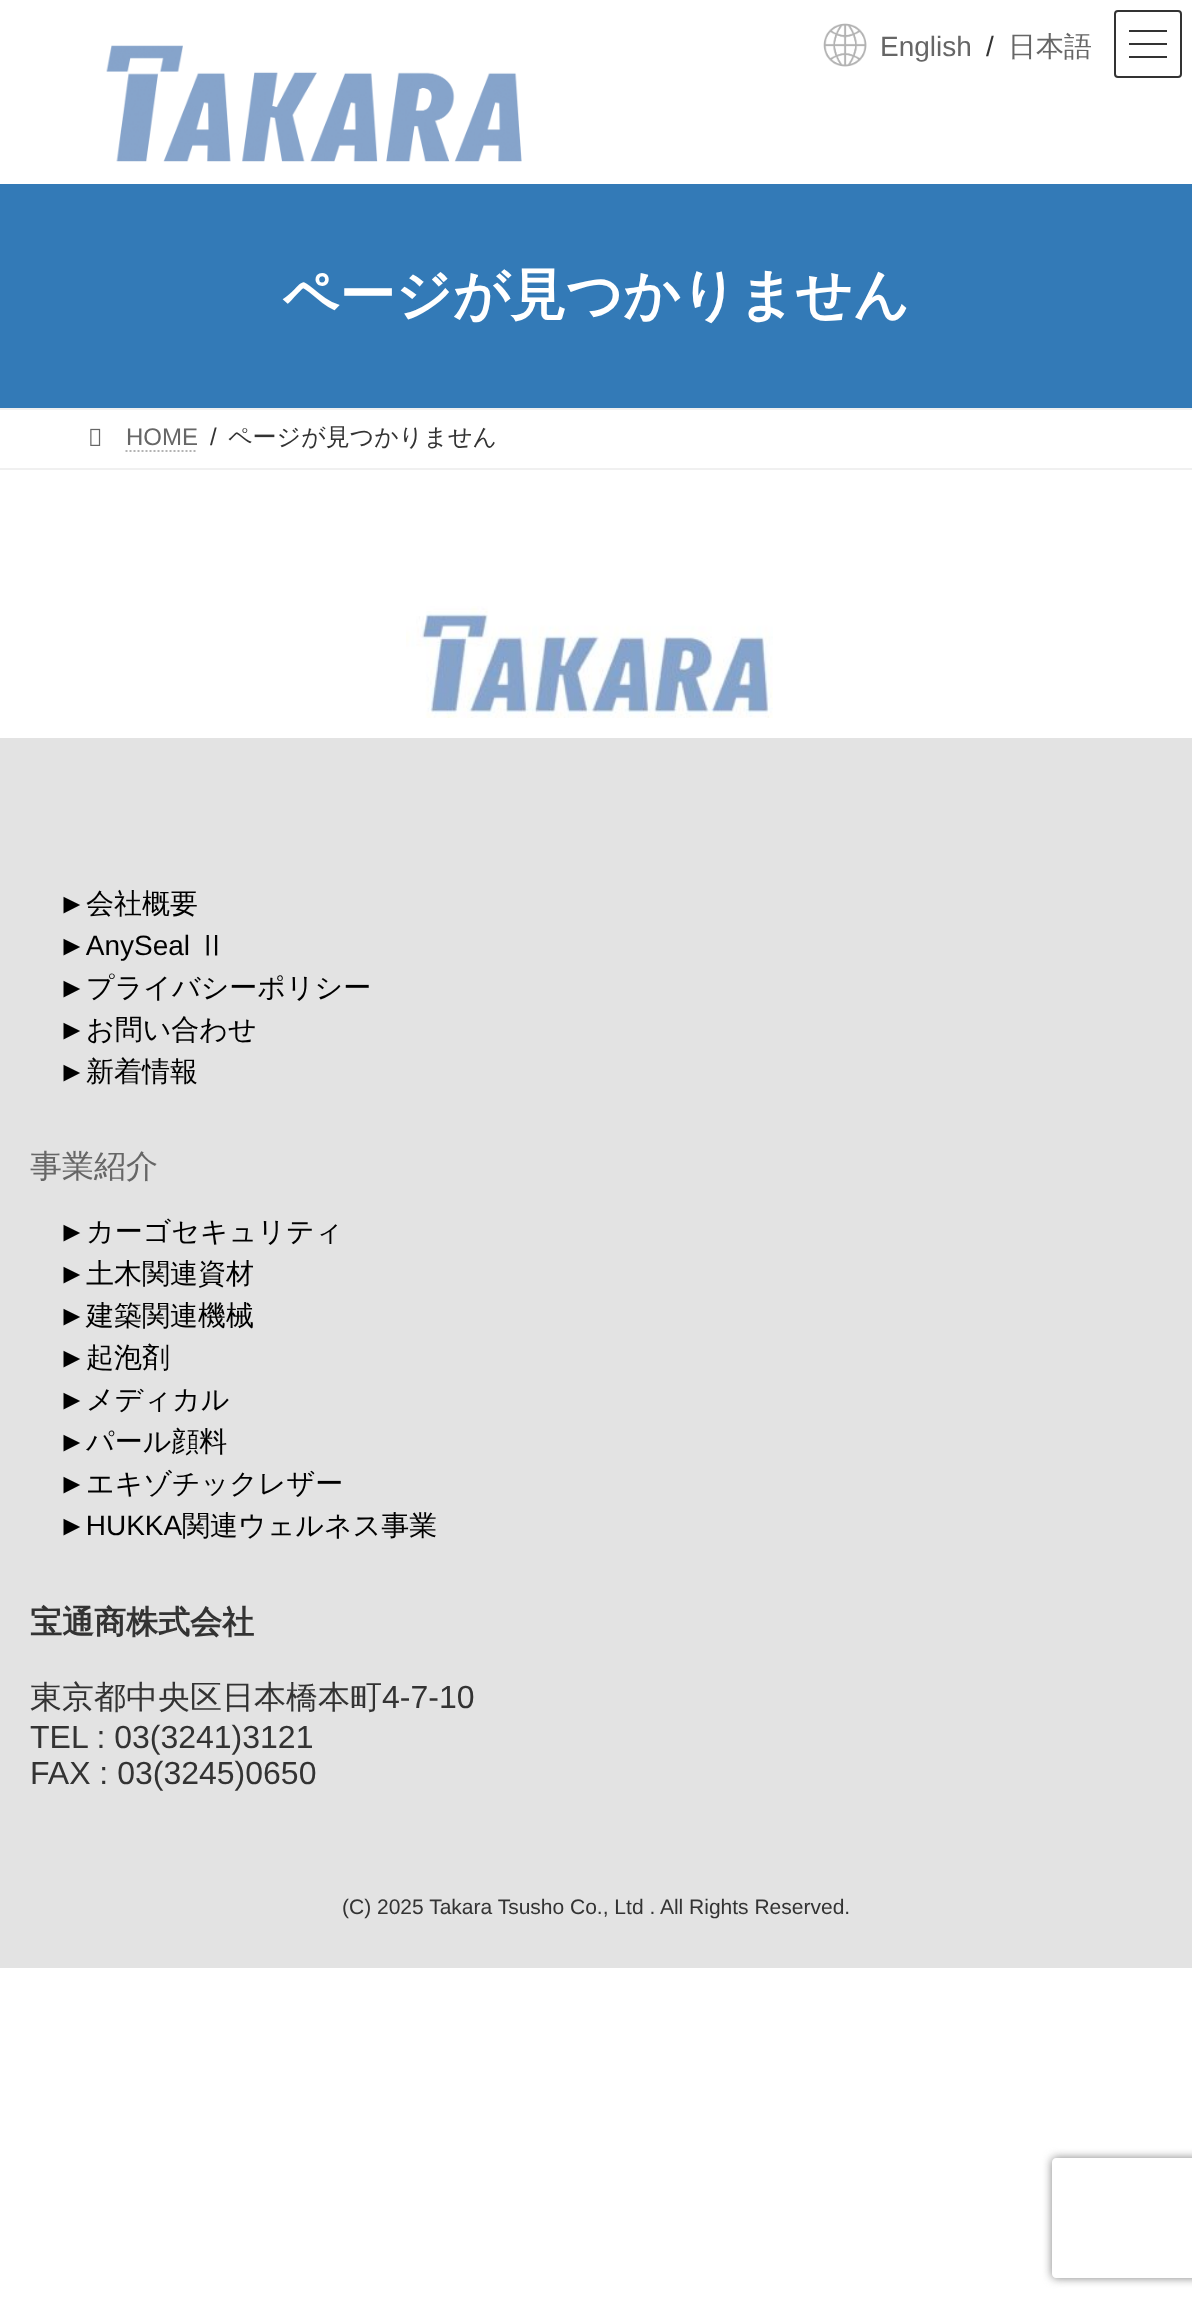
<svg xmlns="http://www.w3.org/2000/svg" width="1192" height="2306">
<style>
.a{font:28px Liberation Sans;fill:#666}
.b{font:28px Liberation Sans;fill:#333}
.c{font:500 28px WenQuanYi Zen Hei;fill:#666}
.d{font:bold 56px WenQuanYi Zen Hei;fill:#fff}
.e{font:24px Liberation Sans;fill:#666}
.f{font:24px Liberation Sans;fill:#333}
.g{font:500 24px WenQuanYi Zen Hei;fill:#333}
.h{font:28px Liberation Sans;fill:#000}
.i{font:500 28px WenQuanYi Zen Hei;fill:#000}
.j{font:500 32px WenQuanYi Zen Hei;fill:#666}
.k{font:bold 32px WenQuanYi Zen Hei;fill:#333}
.l{font:500 32px WenQuanYi Zen Hei;fill:#333}
.m{font:32px Liberation Sans;fill:#333}
.n{font:21px Liberation Sans;fill:#333}
</style>
<defs>
<clipPath id="clip1"><path d="M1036 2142h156v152h-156zm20 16h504c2 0 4 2 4 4v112c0 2-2 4-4 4h-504c-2 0-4-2-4-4v-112c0-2 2-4 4-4z" clip-rule="evenodd"/></clipPath>
</defs>
<rect width="100%" height="100%" fill="#fff"/>
<image href="1.png" x="106" y="45" width="416" height="117"/>
<image href="2.png" x="823" y="23" width="44" height="44"/>
<path fill="#333" d="M1129 30h38v2H1129z"/>
<path fill="#333" d="M1129 43h38v2H1129z"/>
<path fill="#333" d="M1129 56h38v2H1129z"/>
<rect fill="none" stroke="#333" stroke-width="2" x="1115" y="11" width="66" height="66" rx="3"/>
<path fill="#337ab7" d="M0 184h1192v224H0z"/>
<path fill="#f0f0f0" d="M0 408h1192v2H0z"/>
<path fill="#f0f0f0" d="M0 468h1192v2H0z"/>
<image href="3.png" x="90" y="428" width="11" height="18"/>
<path fill="none" stroke="#b3b3b3" stroke-width="2" stroke-dasharray="2 2" d="M125.5 451h72"/>
<image href="4.png" x="406" y="606" width="367" height="112"/>
<path fill="#e3e3e3" d="M0 738h1192v1230H0z"/>
<g clip-path="url(#clip1)">
<rect fill="#808080" filter="blur(5px)" x="1052" y="2158" width="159" height="120" rx="4"/>
</g>
<text class="a" x="880" y="56">English</text>
<text class="b" x="986" y="56">/</text>
<text class="c" x="1008" y="56">日本語</text>
<text class="d" x="282" y="314">ページが見つかりません</text>
<text class="e" x="126" y="445">HOME</text>
<text class="f" x="210" y="445">/</text>
<text class="g" x="228" y="445">ページが見つかりません</text>
<text class="h" x="58" y="913">►</text>
<text class="i" x="86" y="913">会社概要</text>
<text class="h" x="58" y="955">►AnySeal</text>
<text class="i" x="198" y="955">Ⅱ</text>
<text class="h" x="58" y="997">►</text>
<text class="i" x="86" y="997">プライバシーポリシー</text>
<text class="h" x="58" y="1039">►</text>
<text class="i" x="86" y="1039">お問い合わせ</text>
<text class="h" x="58" y="1081">►</text>
<text class="i" x="86" y="1081">新着情報</text>
<text class="j" x="30" y="1177">事業紹介</text>
<text class="h" x="58" y="1241">►</text>
<text class="i" x="86" y="1241">カーゴセキュリティ</text>
<text class="h" x="58" y="1283">►</text>
<text class="i" x="86" y="1283">土木関連資材</text>
<text class="h" x="58" y="1325">►</text>
<text class="i" x="86" y="1325">建築関連機械</text>
<text class="h" x="58" y="1367">►</text>
<text class="i" x="86" y="1367">起泡剤</text>
<text class="h" x="58" y="1409">►</text>
<text class="i" x="86" y="1409">メディカル</text>
<text class="h" x="58" y="1451">►</text>
<text class="i" x="86" y="1451">パール顔料</text>
<text class="h" x="58" y="1493">►</text>
<text class="i" x="86" y="1493">エキゾチックレザー</text>
<text class="h" x="58" y="1535">►HUKKA</text>
<text class="i" x="182" y="1535">関連ウェルネス事業</text>
<text class="k" x="30" y="1633">宝通商株式会社</text>
<text class="l" x="30" y="1708">東京都中央区日本橋本町</text>
<text class="m" x="382" y="1708">4-7-10</text>
<text class="m" x="30" y="1748">TEL : 03(3241)3121</text>
<text class="m" x="30" y="1784">FAX : 03(3245)0650</text>
<text class="n" x="342" y="1914">(C) 2025 Takara Tsusho Co., Ltd . All Rights Reserved.</text>
</svg>
